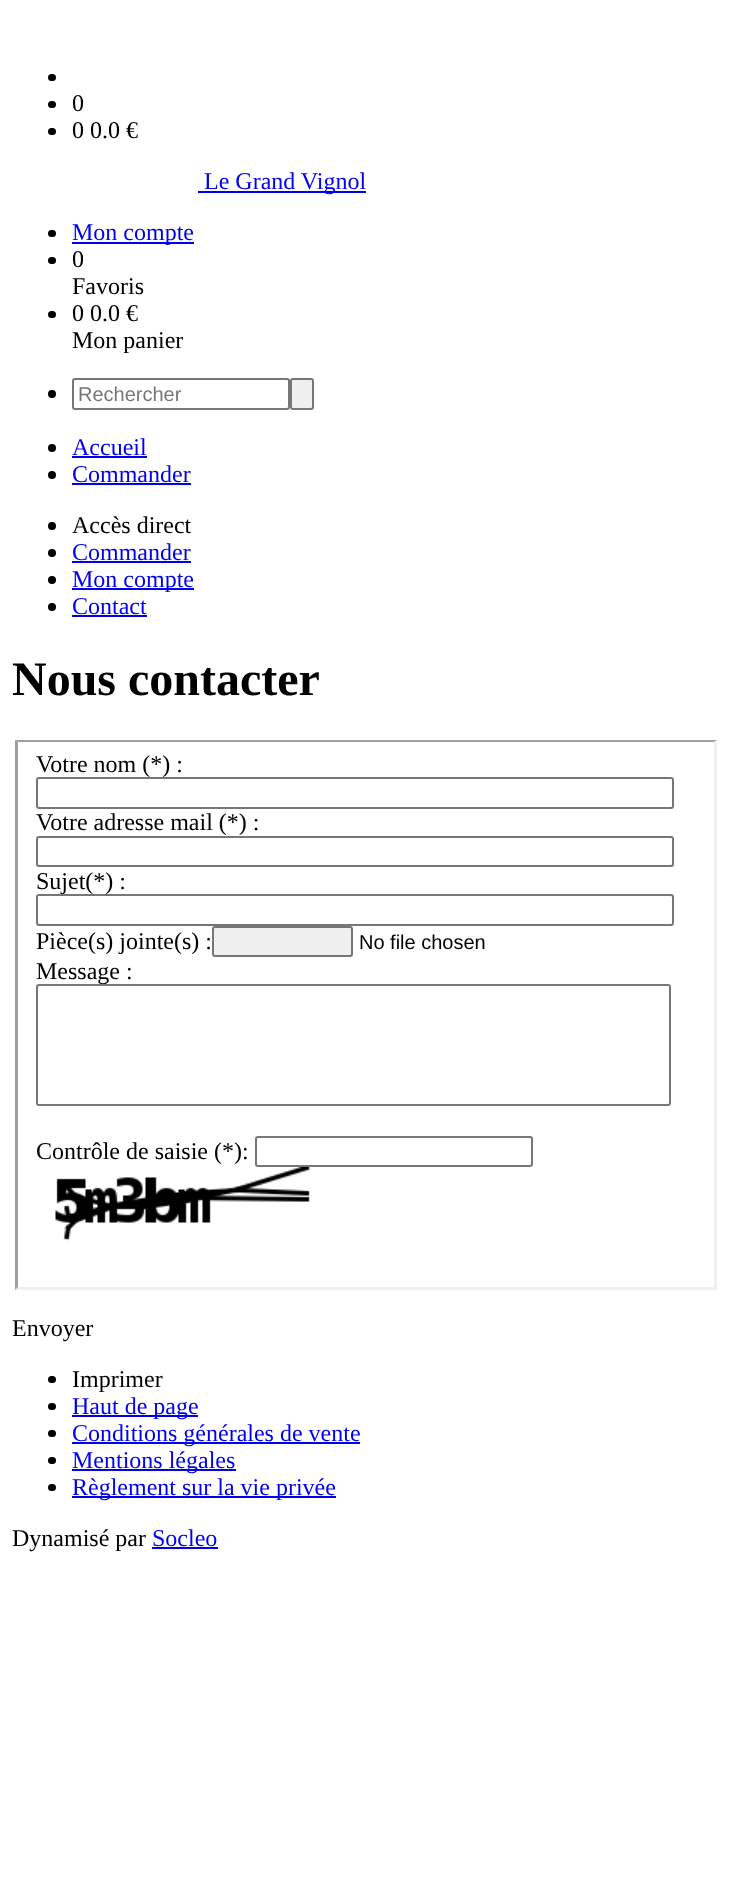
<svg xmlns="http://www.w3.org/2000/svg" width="731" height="1895">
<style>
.a{font:24px Liberation Serif;fill:#000}
.b{font:24px Liberation Serif;fill:#00e}
.c{font:20px Liberation Sans;fill:#757575}
.d{font:bold 48px Liberation Serif;fill:#000}
.e{font:20px Liberation Sans;fill:#000}
</style>
<rect width="100%" height="100%" fill="#fff"/>
<rect fill="#000" x="48" y="74" width="8" height="7" rx="3.5"/>
<rect fill="#000" x="48" y="101" width="8" height="7" rx="3.5"/>
<rect fill="#000" x="48" y="128" width="8" height="7" rx="3.5"/>
<path fill="#00e" d="M198 191h168v2H198z"/>
<rect fill="#000" x="48" y="230" width="8" height="7" rx="3.5"/>
<path fill="#00e" d="M72 242h122v2H72z"/>
<rect fill="#000" x="48" y="257" width="8" height="7" rx="3.5"/>
<rect fill="#000" x="48" y="311" width="8" height="7" rx="3.5"/>
<circle fill="#000" cx="52" cy="394" r="4"/>
<rect fill="none" stroke="#767676" stroke-width="2" x="73" y="379" width="216" height="30" rx="2"/>
<rect fill="#efefef" stroke="#767676" stroke-width="2" x="291" y="379" width="22" height="30" rx="2"/>
<circle fill="#000" cx="52" cy="448" r="4"/>
<path fill="#00e" d="M72 456h75v2H72z"/>
<circle fill="#000" cx="52" cy="475" r="4"/>
<path fill="#00e" d="M72 483h119v2H72z"/>
<circle fill="#000" cx="52" cy="526" r="4"/>
<circle fill="#000" cx="52" cy="553" r="4"/>
<path fill="#00e" d="M72 561h119v2H72z"/>
<circle fill="#000" cx="52" cy="580" r="4"/>
<path fill="#00e" d="M72 588h122v2H72z"/>
<circle fill="#000" cx="52" cy="607" r="4"/>
<path fill="#00e" d="M72 615h75v2H72z"/>
<path fill="#9f9f9f" d="M15 740h702l-3 2h-696z"/>
<path fill="#efefef" d="M717 740v550l-3-3v-545z"/>
<path fill="#efefef" d="M717 1290h-702l3-3h696z"/>
<path fill="#9f9f9f" d="M15 1290v-550l3 2v545z"/>
<rect fill="none" stroke="#767676" stroke-width="2" x="37" y="837" width="636" height="29" rx="2"/>
<rect fill="#efefef" stroke="#767676" stroke-width="2" x="213" y="927" width="139" height="29" rx="2"/>
<rect fill="none" stroke="#767676" stroke-width="2" x="256" y="1137" width="276" height="29" rx="2"/>
<image href="1.png" x="55" y="1167" width="256" height="74"/>
<rect fill="#000" x="48" y="1376" width="8" height="7" rx="3.5"/>
<rect fill="#000" x="48" y="1403" width="8" height="7" rx="3.5"/>
<path fill="#00e" d="M72 1415h126v2H72z"/>
<rect fill="#000" x="48" y="1430" width="8" height="7" rx="3.5"/>
<path fill="#00e" d="M72 1442h288v2H72z"/>
<rect fill="#000" x="48" y="1457" width="8" height="7" rx="3.5"/>
<path fill="#00e" d="M72 1469h164v2H72z"/>
<rect fill="#000" x="48" y="1484" width="8" height="7" rx="3.5"/>
<path fill="#00e" d="M72 1496h264v2H72z"/>
<path fill="#00e" d="M152 1547h66v2H152z"/>
<text class="a" x="72" y="111">0</text>
<text class="a" x="72" y="138">0 0.0 €</text>
<text class="b" x="204" y="189">Le Grand Vignol</text>
<text class="b" x="72" y="240">Mon compte</text>
<text class="a" x="72" y="267">0</text>
<text class="a" x="72" y="294">Favoris</text>
<text class="a" x="72" y="321">0 0.0 €</text>
<text class="a" x="72" y="348">Mon panier</text>
<text class="c" x="78" y="401">Rechercher</text>
<text class="b" x="72" y="455">Accueil</text>
<text class="b" x="72" y="482">Commander</text>
<text class="a" x="72" y="533">Accès direct</text>
<text class="b" x="72" y="560">Commander</text>
<text class="b" x="72" y="587">Mon compte</text>
<text class="b" x="72" y="614">Contact</text>
<text class="d" x="12" y="695">Nous contacter</text>
<text class="a" x="36" y="772">Votre nom (*) :</text>
<rect fill="none" stroke="#767676" stroke-width="2" x="37" y="778" width="636" height="30" rx="2"/>
<text class="a" x="36" y="830">Votre adresse mail (*) :</text>
<text class="a" x="36" y="889">Sujet(*) :</text>
<rect fill="#fff" stroke="#767676" stroke-width="2" x="37" y="895" width="636" height="30" rx="2"/>
<text class="a" x="36" y="949">Pièce(s) jointe(s) :</text>
<text class="e" x="359" y="949">No file chosen</text>
<text class="a" x="36" y="979">Message :</text>
<rect fill="#fff" stroke="#767676" stroke-width="2" x="37" y="985" width="633" height="120" rx="2"/>
<text class="a" x="36" y="1159">Contrôle de saisie (*):</text>
<text class="a" x="12" y="1336">Envoyer</text>
<text class="a" x="72" y="1387">Imprimer</text>
<text class="b" x="72" y="1414">Haut de page</text>
<text class="b" x="72" y="1441">Conditions générales de vente</text>
<text class="b" x="72" y="1468">Mentions légales</text>
<text class="b" x="72" y="1495">Règlement sur la vie privée</text>
<text class="a" x="12" y="1546">Dynamisé par</text>
<text class="b" x="152" y="1546">Socleo</text>
</svg>
